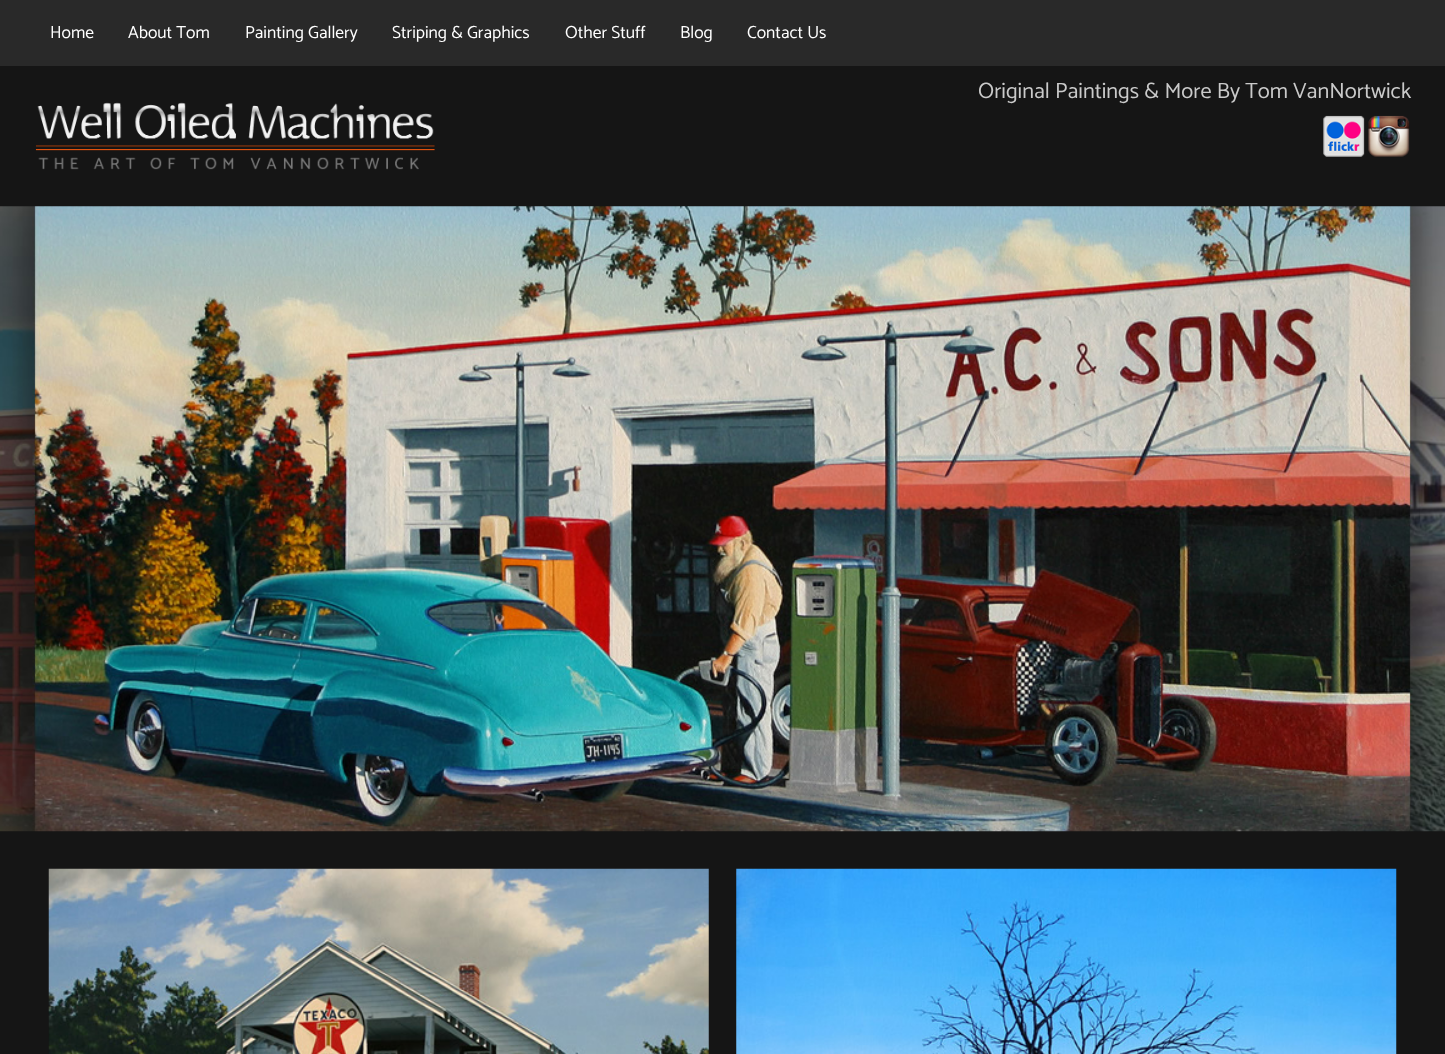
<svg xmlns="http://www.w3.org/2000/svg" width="1445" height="1054">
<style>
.a{font:17.5px Catamaran;fill:#fff}
.b{font:22.25px Catamaran;fill:#cacaca}
</style>
<rect width="100%" height="100%" fill="#151515"/>
<path fill="#292929" d="M0 0h1445v66H0z"/>
<image href="1.png" x="1323" y="115" width="42" height="42"/>
<image href="2.png" x="1368" y="115" width="42" height="42"/>
<image href="3.png" x="35" y="102" width="400" height="68"/>
<image href="4.png" x="0" y="206" width="1445" height="626"/>
<image href="5.png" x="48" y="868" width="661" height="186"/>
<image href="6.png" x="736" y="868" width="661" height="186"/>
<text class="a" x="50" y="38">Home</text>
<text class="a" x="128" y="38">About Tom</text>
<text class="a" x="245" y="38">Painting Gallery</text>
<text class="a" x="392" y="38">Striping &amp; Graphics</text>
<text class="a" x="565" y="38">Other Stuff</text>
<text class="a" x="680" y="38">Blog</text>
<text class="a" x="747" y="38">Contact Us</text>
<text class="b" x="978" y="98">Original Paintings &amp; More By Tom VanNortwick</text>
</svg>
